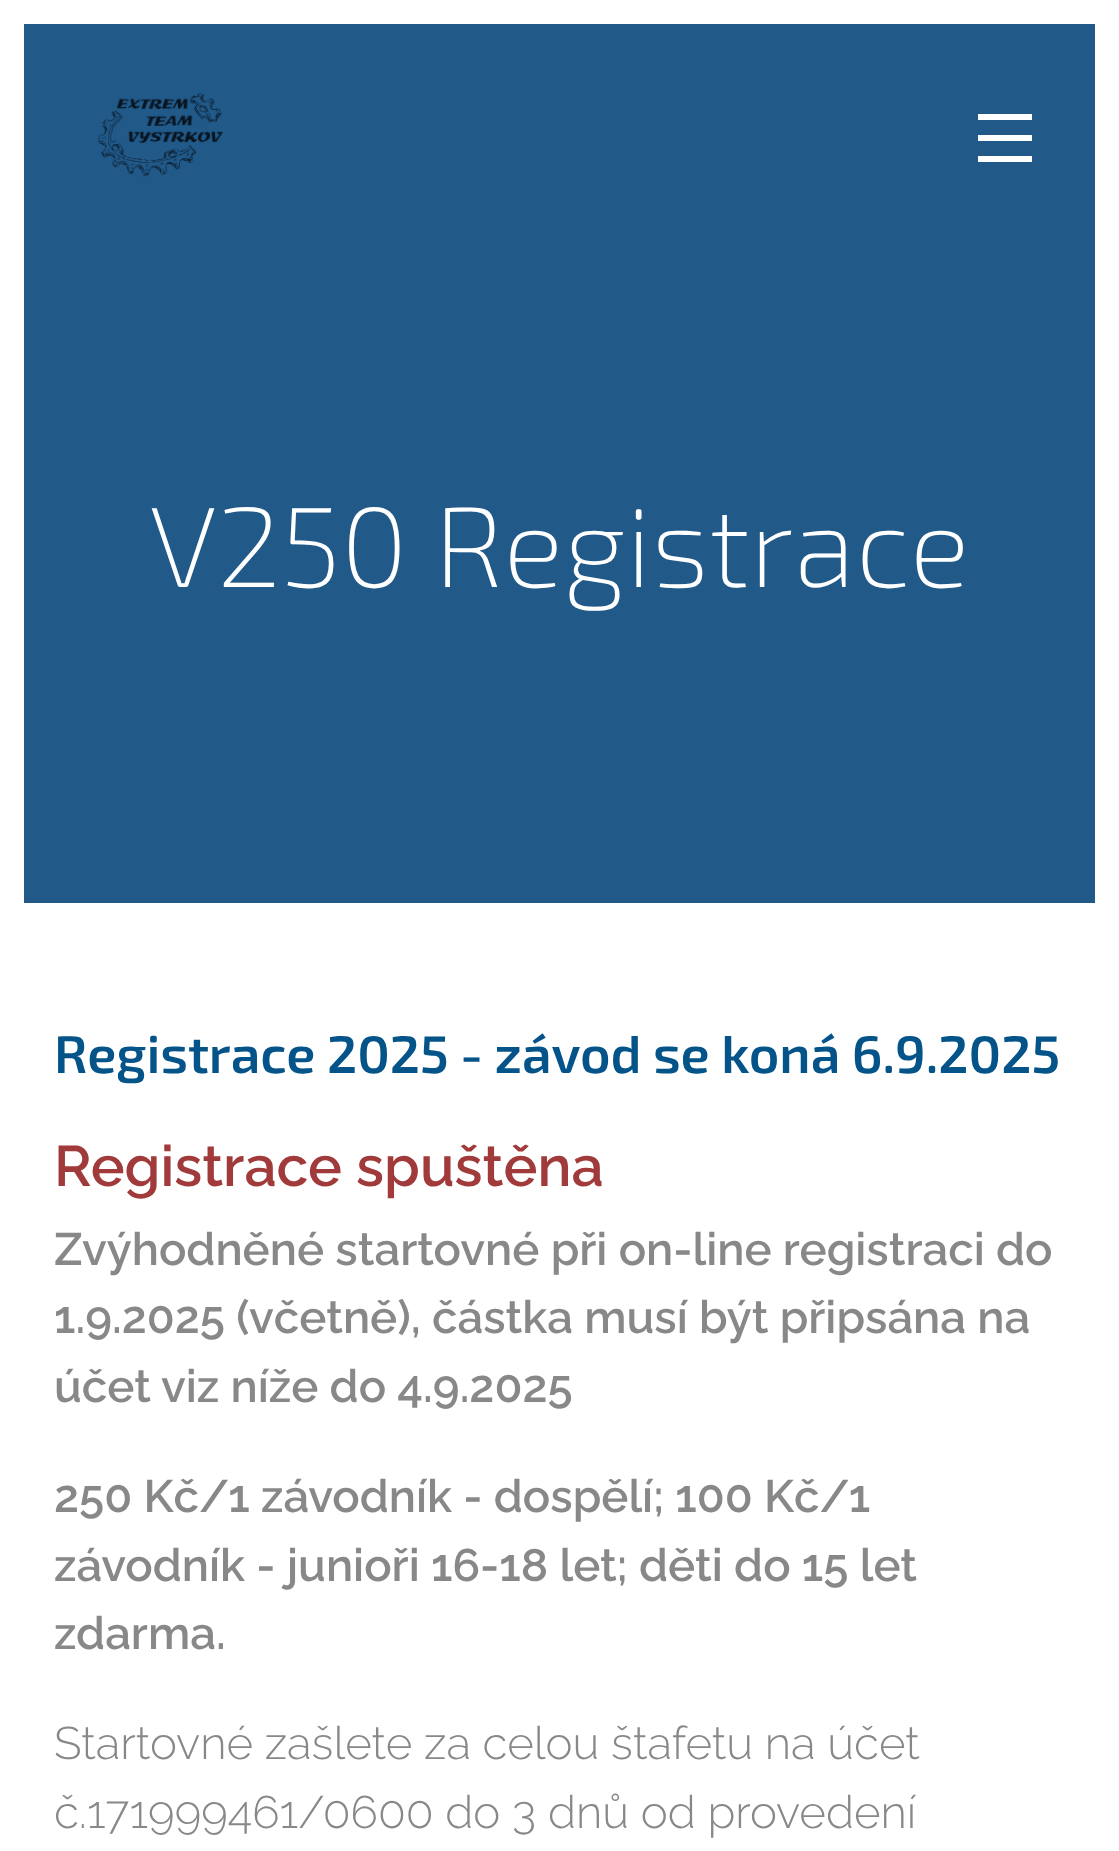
<svg xmlns="http://www.w3.org/2000/svg" width="1119" height="1851">
<style>
.a{font:200 114px 'Exo 2';fill:#fff}
.b{font:600 52.75px 'Exo 2';fill:#045389}
.c{font:600 57px Raleway;fill:#a13a3b}
.d{font:600 45.6px Raleway;fill:#888}
.e{font:300 45.6px Raleway;fill:#888}
</style>
<rect width="100%" height="100%" fill="#fff"/>
<path fill="#215989" d="M24 24h1071v879H24z"/>
<image href="1.png" x="97" y="93" width="126" height="84"/>
<path fill="#fff" d="M978 135h54v6H978z"/>
<path fill="#fff" d="M978 114h54v6H978z"/>
<path fill="#fff" d="M978 156h54v6H978z"/>
<text class="a" x="149" y="587">V250 Registrace</text>
<text class="b" x="54" y="1073">Registrace 2025 - závod se koná 6.9.2025</text>
<text class="c" x="54" y="1186">Registrace spuštěna</text>
<text class="d" x="54" y="1265">Zvýhodněné startovné při on-line registraci do</text>
<text class="d" x="54" y="1333">1.9.2025 (včetně), částka musí být připsána na</text>
<text class="d" x="54" y="1402">účet viz níže do 4.9.2025</text>
<text class="d" x="54" y="1512">250 Kč/1 závodník - dospělí; 100 Kč/1</text>
<text class="d" x="54" y="1581">závodník - junioři 16-18 let; děti do 15 let</text>
<text class="d" x="54" y="1649">zdarma.</text>
<text class="e" x="54" y="1759">Startovné zašlete za celou štafetu na účet</text>
<text class="e" x="54" y="1828">č.171999461/0600 do 3 dnů od provedení</text>
</svg>
